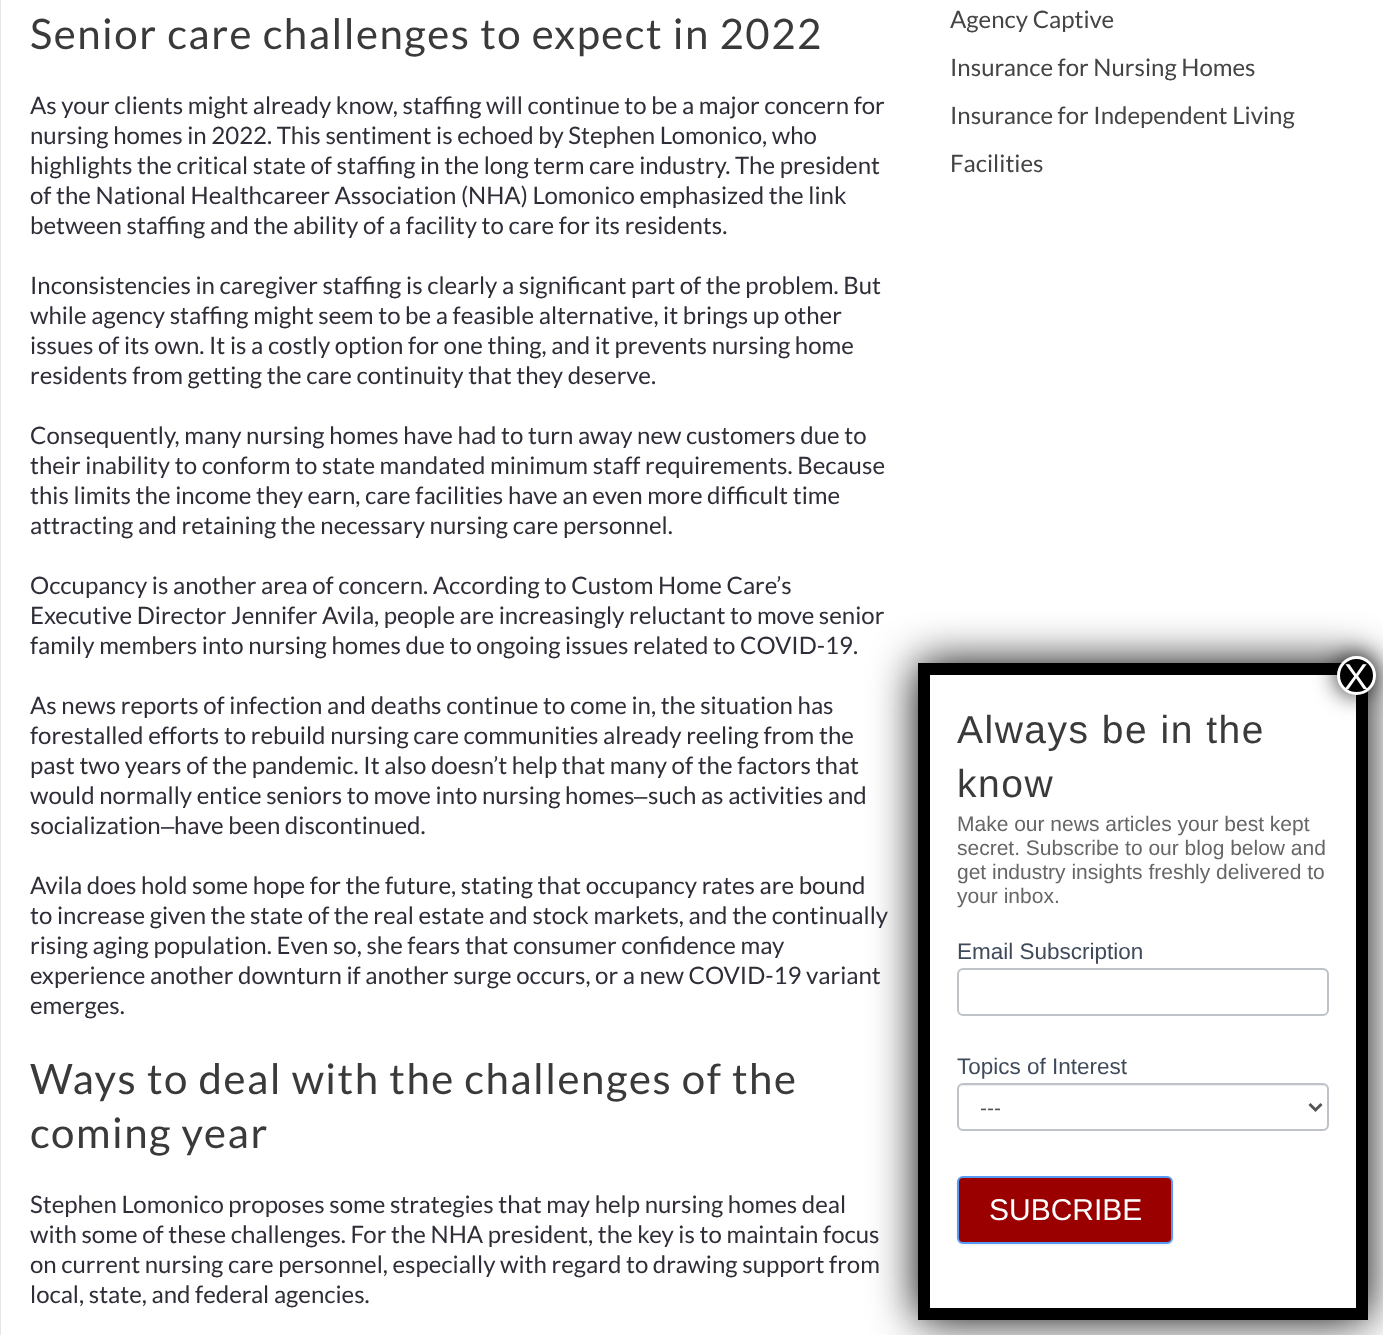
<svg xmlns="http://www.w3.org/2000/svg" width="1383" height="1335">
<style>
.a{font:42px Lato;letter-spacing:1.5px;fill:#3a3a3a}
.b{font:24px Lato;fill:#2e2e38}
.c{font:24px Liberation Sans;fill:#2e2e38}
.d{font:24px Lato;fill:#444}
.e{font:36px Liberation Sans;fill:#fff}
.f{font:39px Liberation Sans;letter-spacing:1.5px;fill:#3a3a3a}
.g{font:21px Liberation Sans;fill:#666}
.h{font:22.5px Liberation Sans;fill:#3f4b5b}
.i{font:21px Liberation Sans;fill:#555}
.j{font:30px Liberation Sans;fill:#fff}
</style>
<rect width="100%" height="100%" fill="#fff"/>
<path fill="#e6e6e6" d="M0 0h1v1335H0z"/>
<rect fill="#020202" filter="blur(22.5px)" x="918" y="663" width="450" height="657" rx="5"/>
<path fill="#fff" d="M930 675h426v633H930z"/>
<path fill="none" stroke="#000" stroke-width="12" d="M924 669h438v645h-438z"/>
<rect fill="#020202bf" filter="blur(11px)" x="1335" y="654" width="42" height="42" rx="21"/>
<circle fill="#000" stroke="#fff" stroke-width="3" cx="1356.5" cy="675.5" r="18"/>
<path fill="#ececec" d="M963 970h360c2 0 5 3 5 5v-1c0-3-2-5-5-5h-359c-2 0-4 1-5 3c1-1 3-2 4-2z"/>
<rect fill="none" stroke="#bfc3c8" stroke-width="2" x="958" y="969" width="370" height="46" rx="5"/>
<path fill="#ececec" d="M963 1086h360c2 0 5 2 5 4c0-3-2-5-5-5h-359c-2 0-3 1-4 2z"/>
<rect fill="none" stroke="#bfc3c8" stroke-width="2" x="958" y="1084" width="370" height="46" rx="5"/>
<path fill="none" stroke="#555" stroke-width="3" d="M1309.5 1104l6 6l6-6"/>
<rect fill="#eee" filter="blur(1px)" x="957" y="1178" width="216" height="67" rx="6"/>
<rect fill="#9a0000" stroke="#579af6" stroke-width="2" x="958" y="1177" width="214" height="66" rx="5"/>
<text class="a" x="30" y="49">Senior care challenges to expect in 2022</text>
<text class="b" x="30" y="114">As your clients might already know, staffing will continue to be a major concern for</text>
<text class="b" x="30" y="144">nursing homes in 2022. This sentiment is echoed by Stephen Lomonico, who</text>
<text class="b" x="30" y="174">highlights the critical state of staffing in the long term care industry. The president</text>
<text class="b" x="30" y="204">of the National Healthcareer Association (NHA) Lomonico emphasized the link</text>
<text class="b" x="30" y="234">between staffing and the ability of a facility to care for its residents.</text>
<text class="b" x="30" y="294">Inconsistencies in caregiver staffing is clearly a significant part of the problem. But</text>
<text class="b" x="30" y="324">while agency staffing might seem to be a feasible alternative, it brings up other</text>
<text class="b" x="30" y="354">issues of its own. It is a costly option for one thing, and it prevents nursing home</text>
<text class="b" x="30" y="384">residents from getting the care continuity that they deserve.</text>
<text class="b" x="30" y="444">Consequently, many nursing homes have had to turn away new customers due to</text>
<text class="b" x="30" y="474">their inability to conform to state mandated minimum staff requirements. Because</text>
<text class="b" x="30" y="504">this limits the income they earn, care facilities have an even more difficult time</text>
<text class="b" x="30" y="534">attracting and retaining the necessary nursing care personnel.</text>
<text class="b" x="30" y="594">Occupancy is another area of concern. According to Custom Home Care’s</text>
<text class="b" x="30" y="624">Executive Director Jennifer Avila, people are increasingly reluctant to move senior</text>
<text class="b" x="30" y="654">family members into nursing homes due to ongoing issues related to COVID-19.</text>
<text class="b" x="30" y="714">As news reports of infection and deaths continue to come in, the situation has</text>
<text class="b" x="30" y="744">forestalled efforts to rebuild nursing care communities already reeling from the</text>
<text class="b" x="30" y="774">past two years of the pandemic. It also doesn’t help that many of the factors that</text>
<text class="b" x="30" y="804">would normally entice seniors to move into nursing homes</text>
<text class="c" x="634" y="804">‒</text>
<text class="b" x="648" y="804">such as activities and</text>
<text class="b" x="30" y="834">socialization</text>
<text class="c" x="161" y="834">‒</text>
<text class="b" x="174" y="834">have been discontinued.</text>
<text class="b" x="30" y="894">Avila does hold some hope for the future, stating that occupancy rates are bound</text>
<text class="b" x="30" y="924">to increase given the state of the real estate and stock markets, and the continually</text>
<text class="b" x="30" y="954">rising aging population. Even so, she fears that consumer confidence may</text>
<text class="b" x="30" y="984">experience another downturn if another surge occurs, or a new COVID-19 variant</text>
<text class="b" x="30" y="1014">emerges.</text>
<text class="a" x="30" y="1094">Ways to deal with the challenges of the</text>
<text class="a" x="30" y="1148">coming year</text>
<text class="b" x="30" y="1213">Stephen Lomonico proposes some strategies that may help nursing homes deal</text>
<text class="b" x="30" y="1243">with some of these challenges. For the NHA president, the key is to maintain focus</text>
<text class="b" x="30" y="1273">on current nursing care personnel, especially with regard to drawing support from</text>
<text class="b" x="30" y="1303">local, state, and federal agencies.</text>
<text class="d" x="950" y="28">Agency Captive</text>
<text class="d" x="950" y="76">Insurance for Nursing Homes</text>
<text class="d" x="950" y="124">Insurance for Independent Living</text>
<text class="d" x="950" y="172">Facilities</text>
<text class="e" x="1344" y="689">X</text>
<text class="f" x="957" y="743">Always be in the</text>
<text class="f" x="957" y="797">know</text>
<text class="g" x="957" y="831">Make our news articles your best kept</text>
<text class="g" x="957" y="855">secret. Subscribe to our blog below and</text>
<text class="g" x="957" y="879">get industry insights freshly delivered to</text>
<text class="g" x="957" y="903">your inbox.</text>
<text class="h" x="957" y="959">Email Subscription</text>
<text class="h" x="957" y="1074">Topics of Interest</text>
<text class="i" x="980" y="1115">---</text>
<text class="j" x="989" y="1220">SUBCRIBE</text>
</svg>
